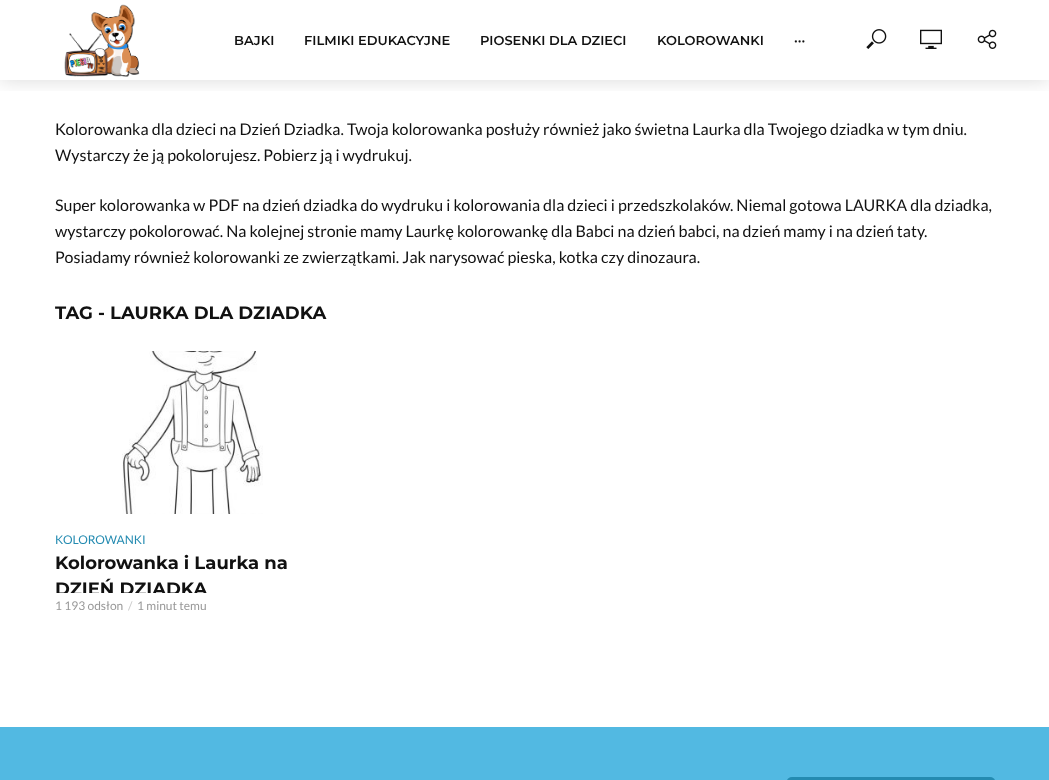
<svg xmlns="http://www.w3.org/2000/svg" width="1049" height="780">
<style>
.a{font:600 13px Montserrat;fill:#111}
.b{font:16px Lato;fill:#111}
.c{font:bold 18px Montserrat;fill:#111}
.d{font:12px Lato;fill:#248bb1}
.e{font:12px Lato;fill:#999}
.f{font:12px Lato;fill:#ccc}
</style>
<defs>
<clipPath id="clip1"><path d="M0 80h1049v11H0z"/></clipPath>
<clipPath id="clip2"><path d="M55 551h289v42H55z"/></clipPath>
</defs>
<rect width="100%" height="100%" fill="#fff"/>
<g clip-path="url(#clip1)">
<path fill="#00000026" filter="blur(10px)" d="M0 0h1049v80H0z"/>
</g>
<image href="1.png" x="64" y="4" width="76" height="73"/>
<image href="2.png" x="866" y="29" width="21" height="20"/>
<image href="3.png" x="920" y="29" width="22" height="20"/>
<image href="4.png" x="977" y="29" width="20" height="20"/>
<image href="5.png" x="122" y="351" width="141" height="163"/>
<path fill="#52b9e2" d="M0 727h1049v53H0z"/>
<rect fill="#248bb1" x="787" y="777" width="208" height="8" rx="5"/>
<text class="a" x="234" y="45">BAJKI</text>
<text class="a" x="304" y="45">FILMIKI EDUKACYJNE</text>
<text class="a" x="480" y="45">PIOSENKI DLA DZIECI</text>
<text class="a" x="657" y="45">KOLOROWANKI</text>
<text class="a" x="794" y="45">···</text>
<text class="b" x="55" y="135">Kolorowanka dla dzieci na Dzień Dziadka. Twoja kolorowanka posłuży również jako świetna Laurka dla Twojego dziadka w tym dniu.</text>
<text class="b" x="55" y="161">Wystarczy że ją pokolorujesz. Pobierz ją i wydrukuj.</text>
<text class="b" x="55" y="211">Super kolorowanka w PDF na dzień dziadka do wydruku i kolorowania dla dzieci i przedszkolaków. Niemal gotowa LAURKA dla dziadka,</text>
<text class="b" x="55" y="237">wystarczy pokolorować. Na kolejnej stronie mamy Laurkę kolorowankę dla Babci na dzień babci, na dzień mamy i na dzień taty.</text>
<text class="b" x="55" y="263">Posiadamy również kolorowanki ze zwierzątkami. Jak narysować pieska, kotka czy dinozaura.</text>
<text class="c" x="55" y="319">TAG - LAURKA DLA DZIADKA</text>
<text class="d" x="55" y="544">KOLOROWANKI</text>
<text class="c" x="55" y="569">Kolorowanka i Laurka na</text>
<g clip-path="url(#clip2)">
<text class="c" x="55" y="595">DZIEŃ DZIADKA</text>
</g>
<text class="e" x="55" y="610">1 193 odsłon</text>
<text class="f" x="128" y="610">/</text>
<text class="e" x="137" y="610">1 minut temu</text>
</svg>
